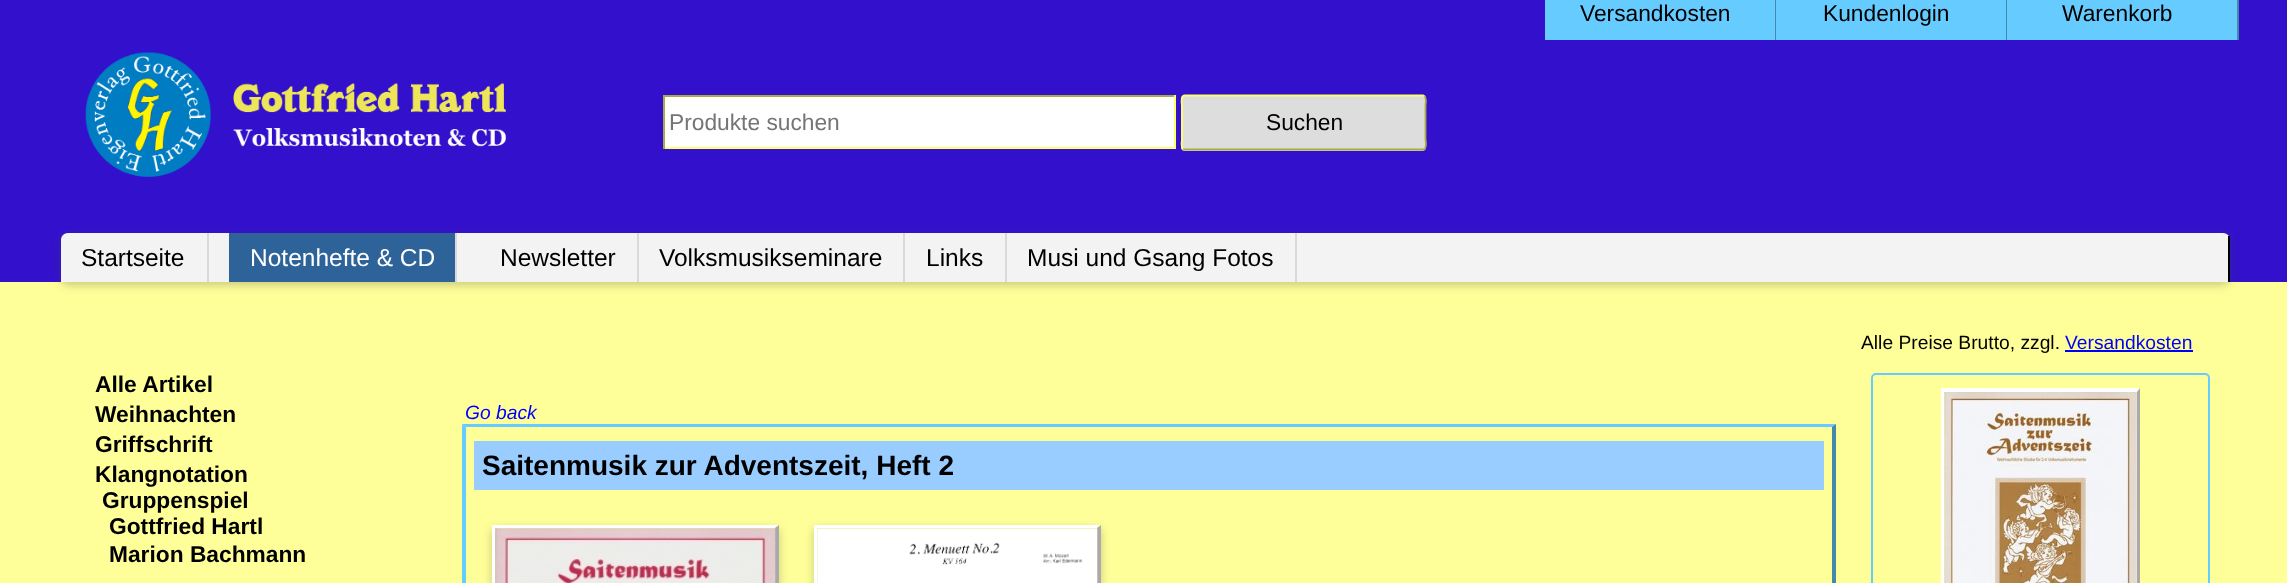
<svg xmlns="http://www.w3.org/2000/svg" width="2287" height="583">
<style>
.a{font:22.75px Liberation Sans;fill:#000}
.b{font:22.75px Liberation Sans;fill:#757575}
.c{font:24.5px Liberation Sans;fill:#000}
.d{font:24.5px Liberation Sans;fill:#fff}
.e{font:19.25px Liberation Sans;fill:#000}
.f{font:19.25px Liberation Sans;fill:#00f}
.g{font:bold 22.75px Liberation Sans;fill:#000}
.h{font:italic 19.25px Liberation Sans;fill:#00f}
.i{font:bold 28px Liberation Sans;fill:#000}
</style>
<rect width="100%" height="100%" fill="#ff9"/>
<path fill="#31c" d="M0 0h2287v282H0z"/>
<path fill="#6cf" d="M1545 0h230v40H1545z"/>
<path fill="#48a" d="M1775 0h1v40H1775z"/>
<path fill="#6cf" d="M1776 0h230v40H1776z"/>
<path fill="#48a" d="M2006 0h1v40H2006z"/>
<path fill="#6cf" d="M2007 0h230v40H2007z"/>
<path fill="#48a" d="M2237 0h2v40H2237z"/>
<image href="1.png" x="85" y="52" width="421" height="125"/>
<path fill="#fff" d="M665 97h509v50H665z"/>
<path fill="#aa4" d="M663 95h513v2H663z"/>
<path fill="#ff6" d="M1174 95h2v54H1174z"/>
<path fill="#ff6" d="M663 147h513v2H663z"/>
<path fill="#aa4" d="M663 95h2v54H663z"/>
<rect fill="#ddd" x="1181" y="95" width="245" height="56" rx="4"/>
<path fill="none" stroke="#aa4" stroke-width="1.8" d="M1424.5 96c2.5 2.5 1 7 1 10v33c0 .5 2 10.5-2.5 10.5h-238l-2-.5"/>
<path fill="none" stroke="#ff6" stroke-width="1.8" d="M1183 149c-2.5-2.5-1-7-1-10v-33c0-.5-2-10.5 3-10.5h238l1.5 .5"/>
<rect fill="#4444444d" filter="blur(5px)" x="61" y="236" width="2169" height="49" rx="7"/>
<path fill="#f3f3f3" d="M68 233h2155c4 0 7 3 7 7v42h-2169v-42c0-4 3-7 7-7z"/>
<path fill="#000" d="M2228 236h2v46H2228z"/>
<path fill="#d9d9d9" d="M207 233h2v49H207z"/>
<path fill="#2e6399" d="M229 233h226v49H229z"/>
<path fill="#d9d9d9" d="M455 233h2v49H455z"/>
<path fill="#d9d9d9" d="M637 233h2v49H637z"/>
<path fill="#d9d9d9" d="M903 233h2v49H903z"/>
<path fill="#d9d9d9" d="M1005 233h2v49H1005z"/>
<path fill="#d9d9d9" d="M1295 233h2v49H1295z"/>
<path fill="#00f" d="M2065 350h128v2H2065z"/>
<rect fill="none" stroke="#6cf" stroke-width="2" x="1872" y="374" width="337" height="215" rx="4"/>
<path fill="#fff" d="M1941 388h199l-3 4h-193z"/>
<path fill="#fff" d="M1941 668v-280l3 4v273z"/>
<image href="2.png" x="1944" y="392" width="193" height="191"/>
<path fill="#aaa" d="M2140 388v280l-3-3v-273z"/>
<path fill="#6cf" d="M462 424h1374l-4 3h-1366z"/>
<path fill="#48a" d="M1836 424v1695l-4-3v-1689z"/>
<path fill="#6cf" d="M462 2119v-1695l4 3v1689z"/>
<path fill="#9cf" d="M474 441h1350v49H474z"/>
<path fill="#4444444d" filter="blur(5px)" d="M492 529h287v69H492z"/>
<path fill="#fff" d="M492 525h287l-4 3h-280z"/>
<path fill="#fff" d="M492 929v-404l3 3v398z"/>
<path fill="#aaa" d="M779 525v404l-4-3v-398z"/>
<image href="3.png" x="495" y="528" width="281" height="55"/>
<path fill="#4444444d" filter="blur(5px)" d="M814 529h287v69H814z"/>
<path fill="#fff" d="M814 525h287l-4 3h-280z"/>
<path fill="#fff" d="M814 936v-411l3 3v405z"/>
<path fill="#aaa" d="M1101 525v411l-4-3v-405z"/>
<image href="4.png" x="817" y="528" width="281" height="55"/>
<text class="a" x="1580" y="21">Versandkosten</text>
<text class="a" x="1823" y="21">Kundenlogin</text>
<text class="a" x="2062" y="21">Warenkorb</text>
<text class="b" x="669" y="130">Produkte suchen</text>
<text class="a" x="1266" y="130">Suchen</text>
<text class="c" x="81" y="266">Startseite</text>
<text class="d" x="250" y="266">Notenhefte &amp; CD</text>
<text class="c" x="500" y="266">Newsletter</text>
<text class="c" x="659" y="266">Volksmusikseminare</text>
<text class="c" x="926" y="266">Links</text>
<text class="c" x="1027" y="266">Musi und Gsang Fotos</text>
<text class="e" x="1861" y="349">Alle Preise Brutto, zzgl.</text>
<text class="f" x="2065" y="349">Versandkosten</text>
<text class="g" x="95" y="392">Alle Artikel</text>
<text class="g" x="95" y="422">Weihnachten</text>
<text class="g" x="95" y="452">Griffschrift</text>
<text class="g" x="95" y="482">Klangnotation</text>
<text class="g" x="102" y="508">Gruppenspiel</text>
<text class="g" x="109" y="534">Gottfried Hartl</text>
<text class="g" x="109" y="562">Marion Bachmann</text>
<text class="h" x="465" y="419">Go back</text>
<text class="i" x="482" y="475">Saitenmusik zur Adventszeit, Heft 2</text>
</svg>
